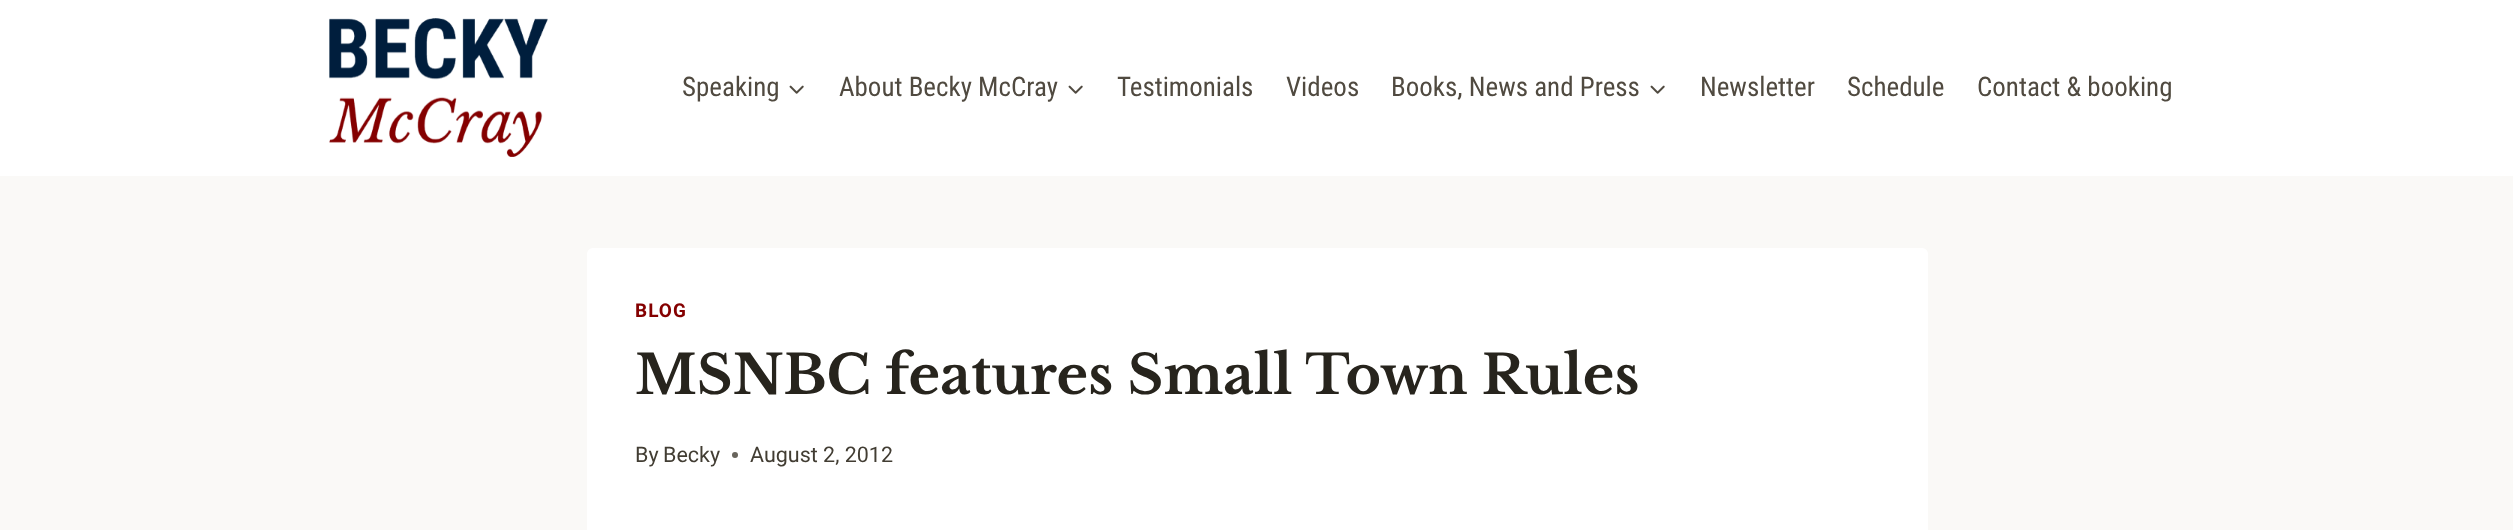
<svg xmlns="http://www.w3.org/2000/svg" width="2513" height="530">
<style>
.a{font:27px Roboto Condensed;fill:#504a40}
.b{font:bold 19px Roboto;letter-spacing:1px;fill:#840000}
.c{font:bold 54px Libre Baskerville;fill:#27241d}
.d{font:21.5px Roboto;fill:#423d33}
</style>
<rect width="100%" height="100%" fill="#faf9f7"/>
<path fill="#fff" d="M0 0h2513v176H0z"/>
<image href="1.png" x="329" y="18" width="219" height="139"/>
<image href="2.png" x="789" y="85" width="15" height="9"/>
<image href="2.png" x="1068" y="85" width="15" height="9"/>
<image href="2.png" x="1650" y="85" width="15" height="9"/>
<rect fill="#fff" x="587" y="248" width="1341" height="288" rx="6"/>
<circle fill="#68645c" cx="735" cy="455" r="3"/>
<text class="a" x="682" y="96">Speaking</text>
<text class="a" x="839" y="96">About Becky McCray</text>
<text class="a" x="1117" y="96">Testimonials</text>
<text class="a" x="1286" y="96">Videos</text>
<text class="a" x="1391" y="96">Books, News and Press</text>
<text class="a" x="1700" y="96">Newsletter</text>
<text class="a" x="1847" y="96">Schedule</text>
<text class="a" x="1977" y="96">Contact &amp; booking</text>
<text class="b" x="635" y="317">BLOG</text>
<text class="c" x="635" y="394">MSNBC features Small Town Rules</text>
<text class="d" x="635" y="462">By</text>
<text class="d" x="663" y="462">Becky</text>
<text class="d" x="750" y="462">August 2, 2012</text>
</svg>
